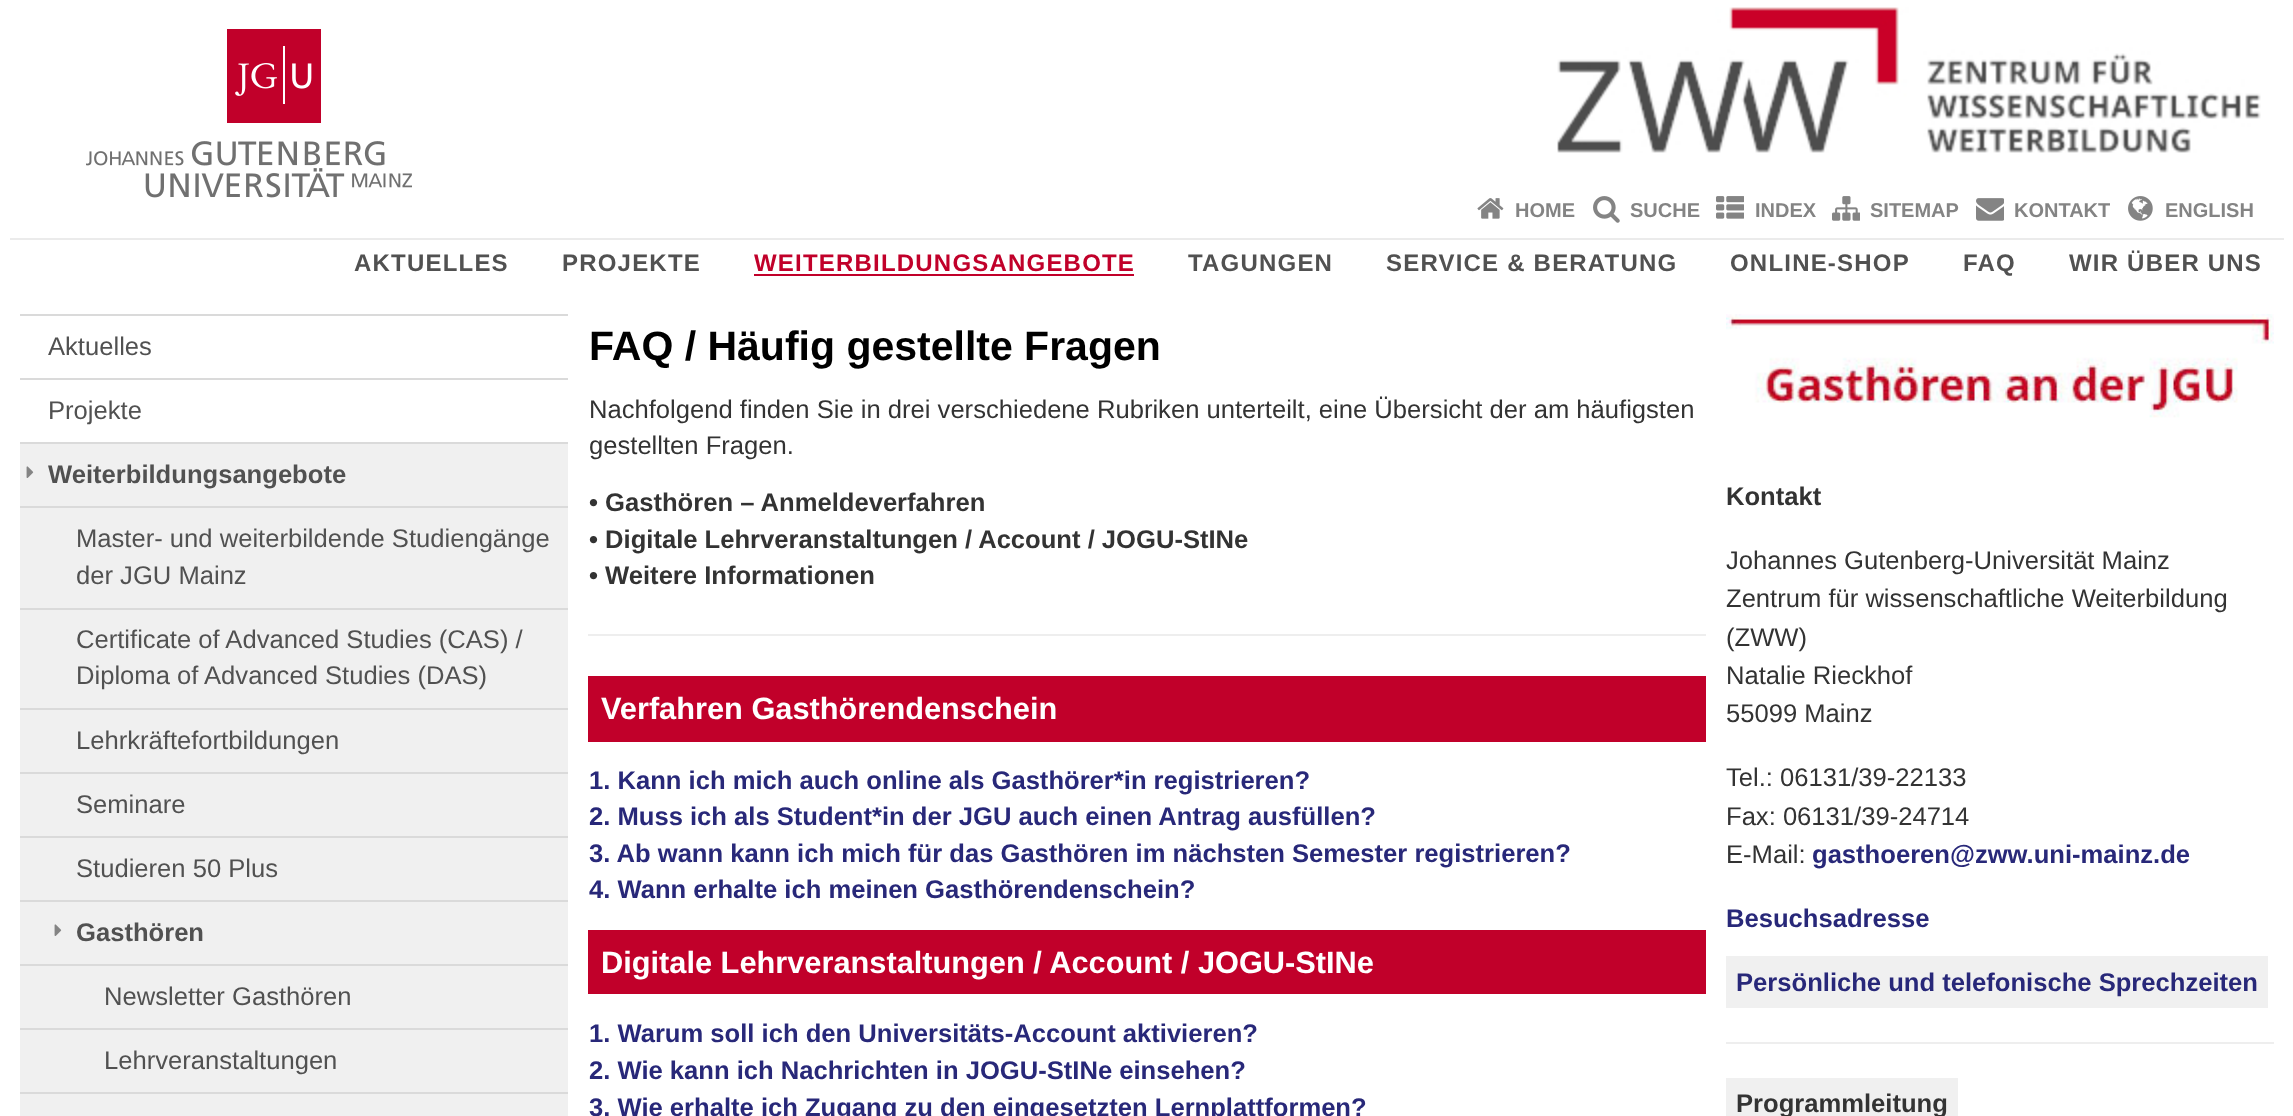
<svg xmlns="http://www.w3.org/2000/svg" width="2293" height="1116">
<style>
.a{font:bold 20px Liberation Sans;fill:#848484}
.b{font:bold 24px Liberation Sans;letter-spacing:1.2px;fill:#515151}
.c{font:bold 24px Liberation Sans;letter-spacing:1.2px;fill:#c1002a}
.d{font:25.6px Liberation Sans;fill:#515151}
.e{font:bold 25.6px Liberation Sans;fill:#515151}
.f{font:bold 41px Liberation Sans;fill:#000}
.g{font:25.6px Liberation Sans;fill:#333}
.h{font:bold 25.6px Liberation Sans;fill:#333}
.i{font:bold 30.75px Liberation Sans;fill:#fff}
.j{font:bold 25.6px Liberation Sans;fill:#282879}
</style>
<rect width="100%" height="100%" fill="#fff"/>
<image href="1.png" x="86" y="29" width="326" height="169"/>
<image href="2.png" x="1557" y="7" width="704" height="146"/>
<image href="3.png" x="1477" y="198" width="27" height="21"/>
<image href="4.png" x="1593" y="196" width="27" height="27"/>
<image href="5.png" x="1716" y="196" width="28" height="23"/>
<image href="6.png" x="1832" y="196" width="28" height="25"/>
<image href="7.png" x="1976" y="198" width="28" height="23"/>
<image href="8.png" x="2128" y="196" width="25" height="25"/>
<path fill="#ebebeb" d="M10 238h2274v2H10z"/>
<path fill="#c1002a" d="M754 274h380v2H754z"/>
<path fill="#dadada" d="M20 314h548v2H20z"/>
<path fill="#dadada" d="M20 378h548v2H20z"/>
<path fill="#f0f0f0" d="M20 444h548v672H20z"/>
<path fill="#dadada" d="M20 442h548v2H20z"/>
<image href="9.png" x="26" y="466" width="8" height="12"/>
<path fill="#dadada" d="M20 506h548v2H20z"/>
<path fill="#dadada" d="M20 608h548v2H20z"/>
<path fill="#dadada" d="M20 708h548v2H20z"/>
<path fill="#dadada" d="M20 772h548v2H20z"/>
<path fill="#dadada" d="M20 836h548v2H20z"/>
<path fill="#dadada" d="M20 900h548v2H20z"/>
<image href="9.png" x="54" y="924" width="8" height="12"/>
<path fill="#dadada" d="M20 964h548v2H20z"/>
<path fill="#dadada" d="M20 1028h548v2H20z"/>
<path fill="#dadada" d="M20 1092h548v2H20z"/>
<path fill="#eee" d="M588 634h1118v2H588z"/>
<path fill="#c1002a" d="M588 676h1118v66H588z"/>
<path fill="#c1002a" d="M588 930h1118v64H588z"/>
<image href="10.png" x="1726" y="314" width="548" height="104"/>
<path fill="#f0f0f0" d="M1726 956h542v52H1726z"/>
<path fill="#eee" d="M1726 1042h548v2H1726z"/>
<path fill="#f0f0f0" d="M1726 1078h232v38H1726z"/>
<text class="a" x="1515" y="217">HOME</text>
<text class="a" x="1630" y="217">SUCHE</text>
<text class="a" x="1755" y="217">INDEX</text>
<text class="a" x="1870" y="217">SITEMAP</text>
<text class="a" x="2014" y="217">KONTAKT</text>
<text class="a" x="2165" y="217">ENGLISH</text>
<text class="b" x="354" y="271">AKTUELLES</text>
<text class="b" x="562" y="271">PROJEKTE</text>
<text class="c" x="754" y="271">WEITERBILDUNGSANGEBOTE</text>
<text class="b" x="1188" y="271">TAGUNGEN</text>
<text class="b" x="1386" y="271">SERVICE &amp; BERATUNG</text>
<text class="b" x="1730" y="271">ONLINE-SHOP</text>
<text class="b" x="1963" y="271">FAQ</text>
<text class="b" x="2069" y="271">WIR ÜBER UNS</text>
<text class="d" x="48" y="355">Aktuelles</text>
<text class="d" x="48" y="419">Projekte</text>
<text class="e" x="48" y="483">Weiterbildungsangebote</text>
<text class="d" x="76" y="547">Master- und weiterbildende Studiengänge</text>
<text class="d" x="76" y="584">der JGU Mainz</text>
<text class="d" x="76" y="648">Certificate of Advanced Studies (CAS) /</text>
<text class="d" x="76" y="684">Diploma of Advanced Studies (DAS)</text>
<text class="d" x="76" y="749">Lehrkräftefortbildungen</text>
<text class="d" x="76" y="813">Seminare</text>
<text class="d" x="76" y="877">Studieren 50 Plus</text>
<text class="e" x="76" y="941">Gasthören</text>
<text class="d" x="104" y="1005">Newsletter Gasthören</text>
<text class="d" x="104" y="1069">Lehrveranstaltungen</text>
<text class="f" x="589" y="360">FAQ / Häufig gestellte Fragen</text>
<text class="g" x="589" y="418">Nachfolgend finden Sie in drei verschiedene Rubriken unterteilt, eine Übersicht der am häufigsten</text>
<text class="g" x="589" y="454">gestellten Fragen.</text>
<text class="h" x="589" y="511">• Gasthören – Anmeldeverfahren</text>
<text class="h" x="589" y="548">• Digitale Lehrveranstaltungen / Account / JOGU-StINe</text>
<text class="h" x="589" y="584">• Weitere Informationen</text>
<text class="i" x="601" y="719">Verfahren Gasthörendenschein</text>
<text class="j" x="589" y="789">1. Kann ich mich auch online als Gasthörer*in registrieren?</text>
<text class="j" x="589" y="825">2. Muss ich als Student*in der JGU auch einen Antrag ausfüllen?</text>
<text class="j" x="589" y="862">3. Ab wann kann ich mich für das Gasthören im nächsten Semester registrieren?</text>
<text class="j" x="589" y="898">4. Wann erhalte ich meinen Gasthörendenschein?</text>
<text class="i" x="601" y="973">Digitale Lehrveranstaltungen / Account / JOGU-StINe</text>
<text class="j" x="589" y="1042">1. Warum soll ich den Universitäts-Account aktivieren?</text>
<text class="j" x="589" y="1079">2. Wie kann ich Nachrichten in JOGU-StINe einsehen?</text>
<text class="j" x="589" y="1116">3. Wie erhalte ich Zugang zu den eingesetzten Lernplattformen?</text>
<text class="h" x="1726" y="505">Kontakt</text>
<text class="g" x="1726" y="569">Johannes Gutenberg-Universität Mainz</text>
<text class="g" x="1726" y="607">Zentrum für wissenschaftliche Weiterbildung</text>
<text class="g" x="1726" y="646">(ZWW)</text>
<text class="g" x="1726" y="684">Natalie Rieckhof</text>
<text class="g" x="1726" y="722">55099 Mainz</text>
<text class="g" x="1726" y="786">Tel.: 06131/39-22133</text>
<text class="g" x="1726" y="825">Fax: 06131/39-24714</text>
<text class="g" x="1726" y="863">E-Mail:</text>
<text class="j" x="1812" y="863">gasthoeren@zww.uni-mainz.de</text>
<text class="j" x="1726" y="927">Besuchsadresse</text>
<text class="j" x="1736" y="991">Persönliche und telefonische Sprechzeiten</text>
<text class="h" x="1736" y="1112">Programmleitung</text>
</svg>
